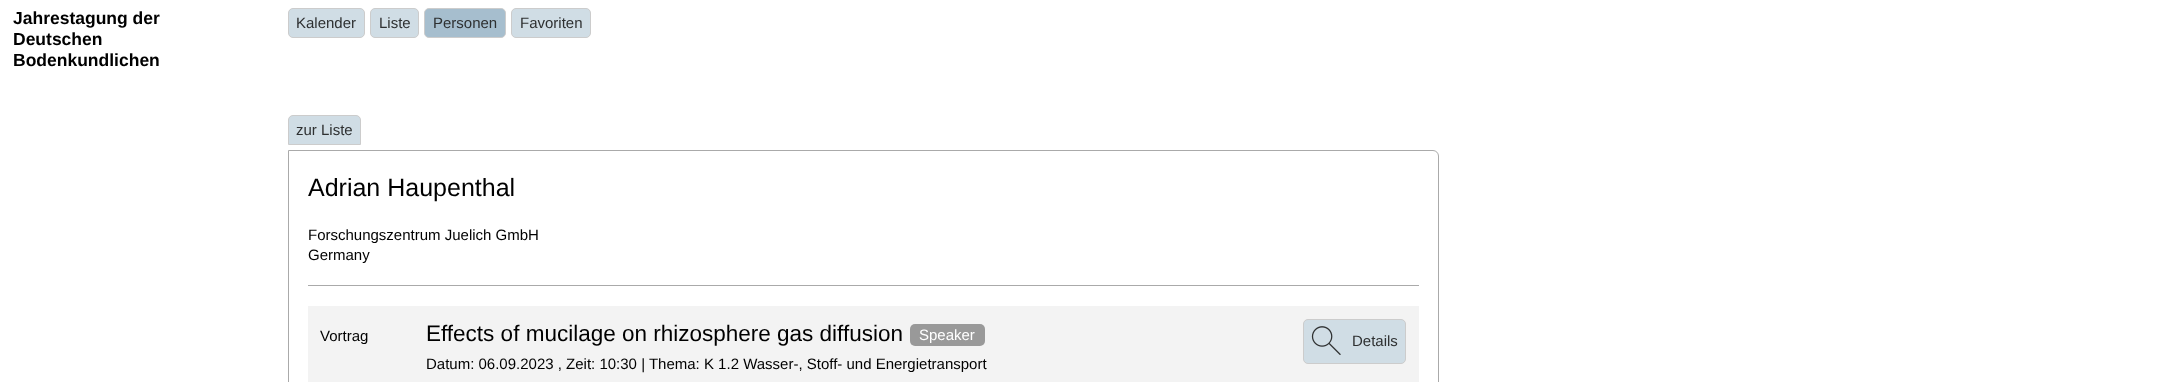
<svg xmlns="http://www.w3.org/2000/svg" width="2171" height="382">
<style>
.a{font:bold 17.5px Liberation Sans;fill:#000}
.b{font:15px Liberation Sans;fill:#2e3031}
.c{font:25px Liberation Sans;fill:#000}
.d{font:15px Liberation Sans;fill:#000}
.e{font:22.5px Liberation Sans;fill:#000}
.f{font:15px Liberation Sans;fill:#fff}
</style>
<rect width="100%" height="100%" fill="#fff"/>
<rect fill="#d0dde5" stroke="#ccc" x="288.5" y="8.5" width="76" height="29" rx="4.5"/>
<rect fill="#d0dde5" stroke="#ccc" x="370.5" y="8.5" width="48" height="29" rx="4.5"/>
<rect fill="#a6bece" stroke="#ccc" x="424.5" y="8.5" width="81" height="29" rx="4.5"/>
<rect fill="#d0dde5" stroke="#ccc" x="511.5" y="8.5" width="79" height="29" rx="4.5"/>
<path fill="none" stroke="#aaa" d="M288.5 150.5h1144.5c3 0 5.5 2.5 5.5 5.5v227c0 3-2.5 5.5-5.5 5.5h-1139c-3 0-5.5-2.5-5.5-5.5z"/>
<path fill="#d0dde5" stroke="#ccc" d="M293 115.5h63c2.5 0 4.5 2 4.5 4.5v24.5h-72v-24.5c0-2.5 2-4.5 4.5-4.5z"/>
<path fill="#aaa" d="M308 285h1111v1H308z"/>
<path fill="#f3f3f3" d="M308 306h1111v76H308z"/>
<rect fill="#999" x="910" y="324" width="75" height="22" rx="5"/>
<rect fill="#d0dde5" stroke="#ccc" x="1303.5" y="319.5" width="102" height="44" rx="4.5"/>
<image href="1.png" x="1311" y="326" width="30" height="29"/>
<text class="a" x="13" y="24">Jahrestagung der</text>
<text class="a" x="13" y="45">Deutschen</text>
<text class="a" x="13" y="66">Bodenkundlichen</text>
<text class="b" x="296" y="28">Kalender</text>
<text class="b" x="379" y="28">Liste</text>
<text class="b" x="433" y="28">Personen</text>
<text class="b" x="520" y="28">Favoriten</text>
<text class="b" x="296" y="135">zur Liste</text>
<text class="c" x="308" y="196">Adrian Haupenthal</text>
<text class="d" x="308" y="240">Forschungszentrum Juelich GmbH</text>
<text class="d" x="308" y="260">Germany</text>
<text class="d" x="320" y="341">Vortrag</text>
<text class="e" x="426" y="341">Effects of mucilage on rhizosphere gas diffusion</text>
<text class="f" x="919" y="340">Speaker</text>
<text class="b" x="1352" y="346">Details</text>
<text class="d" x="426" y="369">Datum: 06.09.2023 , Zeit: 10:30 | Thema: K 1.2 Wasser-, Stoff- und Energietransport</text>
</svg>
